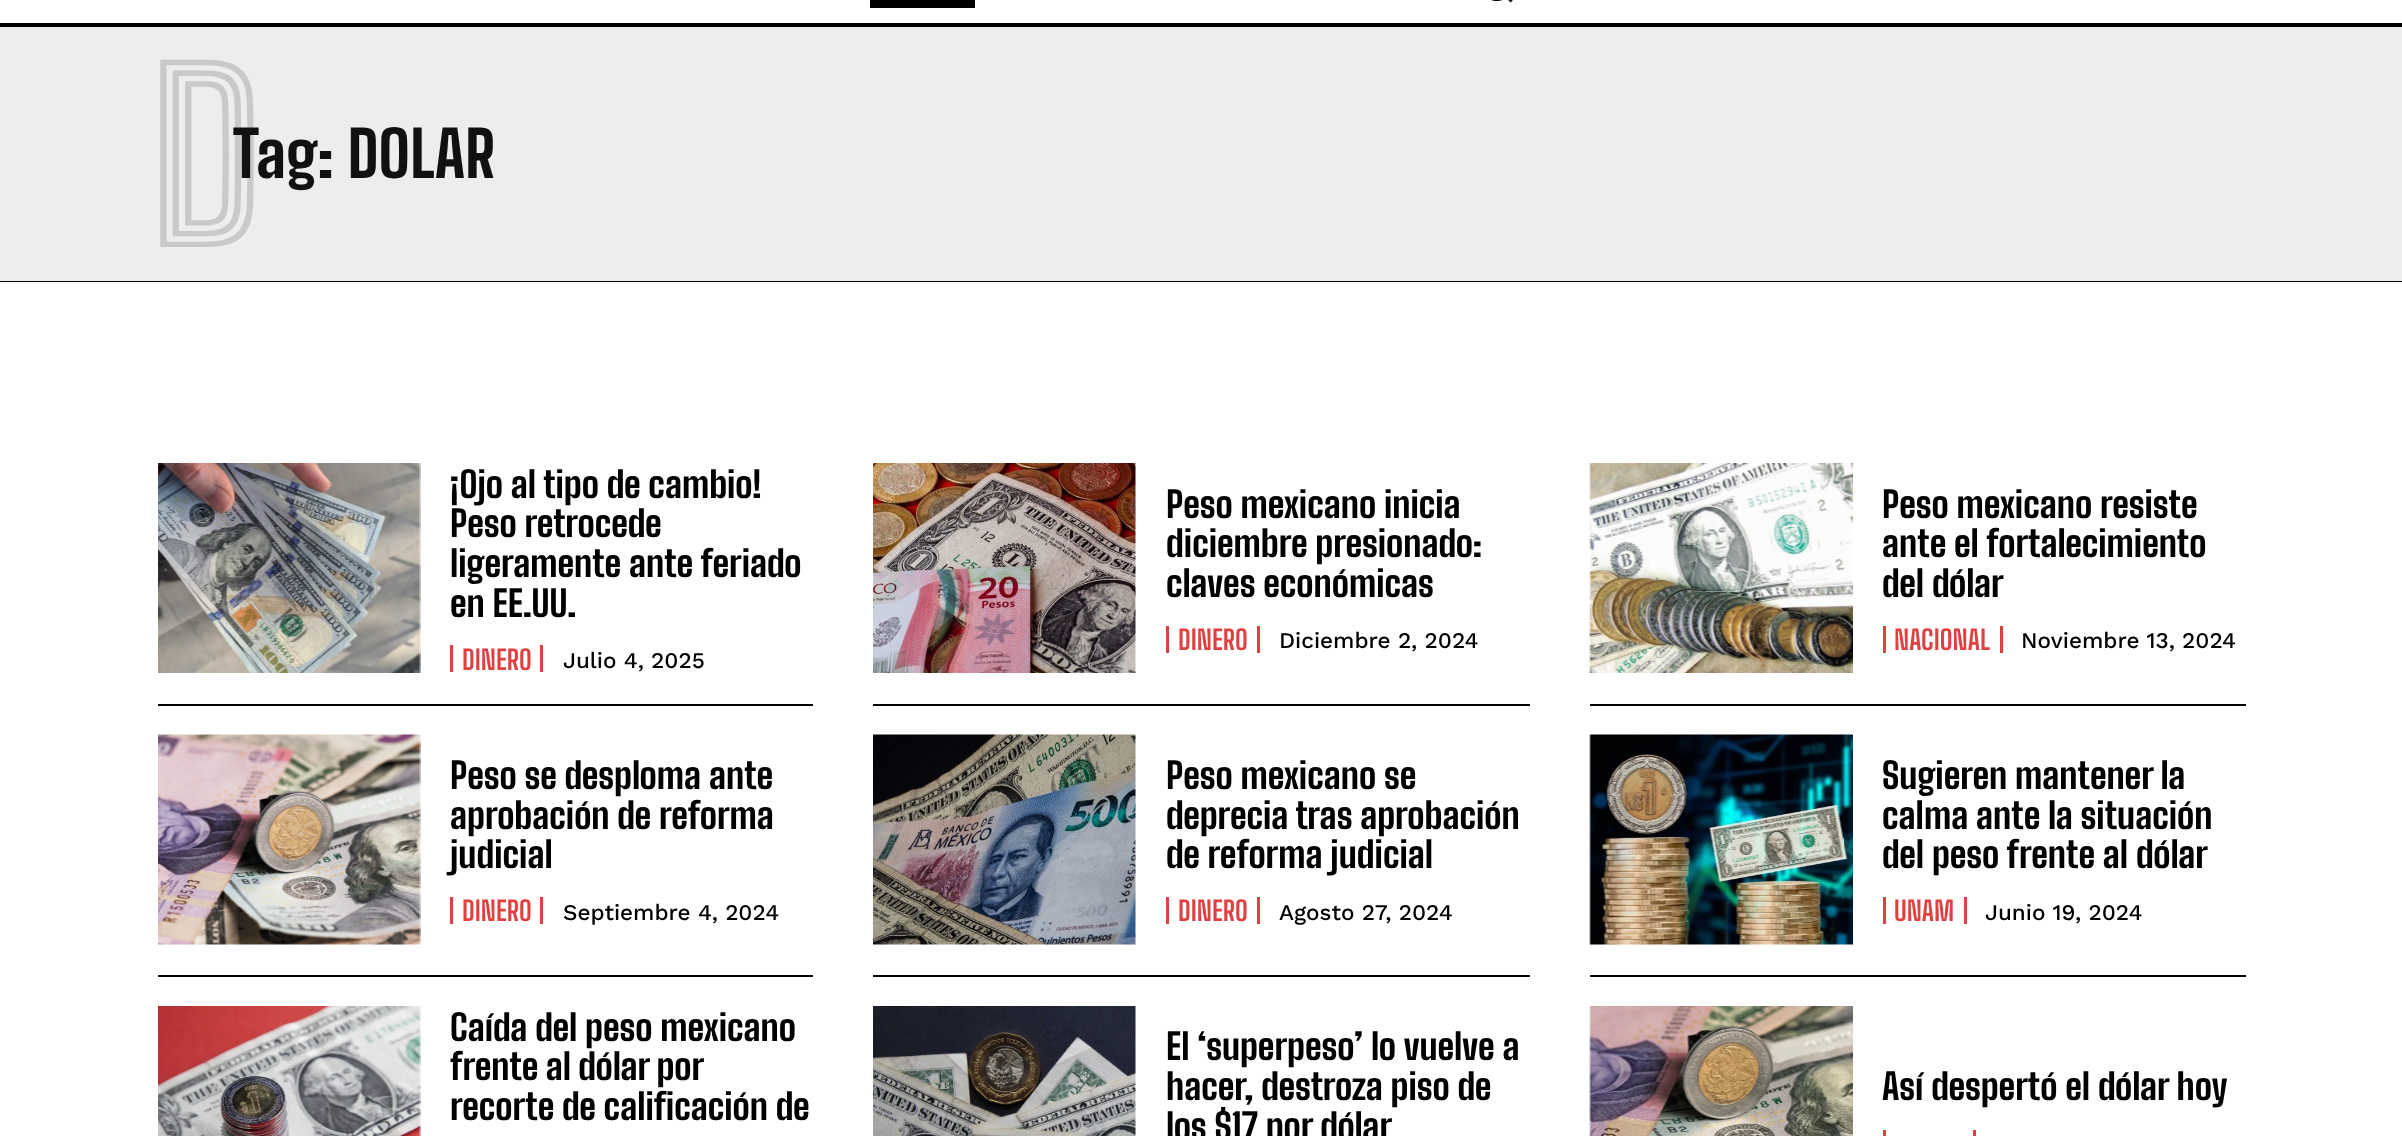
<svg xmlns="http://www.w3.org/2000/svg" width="2402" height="1136">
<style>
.a{font:800 234px Big Shoulders Inline Text;fill:#c9c9c9}
.b{font:800 63px Big Shoulders Text;fill:#111}
.c{font:800 36px Big Shoulders Text;fill:#000}
.d{font:bold 27px Big Shoulders Text;fill:#e04040}
.e{font:500 22.5px Work Sans;fill:#000}
</style>
<rect width="100%" height="100%" fill="#fff"/>
<path fill="#000" d="M870 0h105v8H870z"/>
<image href="1.png" x="1491" y="0" width="22" height="3"/>
<path fill="#000" d="M0 23h2402v4H0z"/>
<path fill="#ededed" d="M0 27h2402v254H0z"/>
<path fill="#000" d="M0 281h2402v1H0z"/>
<path fill="#000" d="M158 704h655v2H158z"/>
<image href="2.png" x="158" y="463" width="263" height="210"/>
<path fill="#e04040" d="M540 645h3v27H540z"/>
<path fill="#e04040" d="M450 645h3v27H450z"/>
<path fill="#000" d="M873 704h657v2H873z"/>
<image href="3.png" x="873" y="463" width="263" height="210"/>
<path fill="#e04040" d="M1257 626h3v27H1257z"/>
<path fill="#e04040" d="M1166 626h3v27H1166z"/>
<path fill="#000" d="M1590 704h656v2H1590z"/>
<image href="4.png" x="1589" y="463" width="264" height="210"/>
<path fill="#e04040" d="M2000 626h3v27H2000z"/>
<path fill="#e04040" d="M1883 626h3v27H1883z"/>
<path fill="#000" d="M158 975h655v2H158z"/>
<image href="5.png" x="158" y="734" width="263" height="211"/>
<path fill="#e04040" d="M540 897h3v27H540z"/>
<path fill="#e04040" d="M450 897h3v27H450z"/>
<path fill="#000" d="M873 975h657v2H873z"/>
<image href="6.png" x="873" y="734" width="263" height="211"/>
<path fill="#e04040" d="M1257 897h3v27H1257z"/>
<path fill="#e04040" d="M1166 897h3v27H1166z"/>
<path fill="#000" d="M1590 975h656v2H1590z"/>
<image href="7.png" x="1589" y="734" width="264" height="211"/>
<path fill="#e04040" d="M1964 897h3v27H1964z"/>
<path fill="#e04040" d="M1883 897h3v27H1883z"/>
<image href="8.png" x="158" y="1006" width="263" height="130"/>
<image href="9.png" x="873" y="1006" width="263" height="130"/>
<image href="10.png" x="1589" y="1006" width="264" height="130"/>
<path fill="#e04040" d="M1973 1130h3v6H1973z"/>
<path fill="#e04040" d="M1883 1130h3v6H1883z"/>
<text class="a" x="148" y="247">D</text>
<text class="b" x="233" y="178">Tag: DOLAR</text>
<text class="c" x="450" y="498">¡Ojo al tipo de cambio!</text>
<text class="c" x="450" y="537">Peso retrocede</text>
<text class="c" x="450" y="577">ligeramente ante feriado</text>
<text class="c" x="450" y="617">en EE.UU.</text>
<text class="d" x="462" y="670">DINERO</text>
<text class="e" x="563" y="668">Julio 4, 2025</text>
<text class="c" x="1166" y="518">Peso mexicano inicia</text>
<text class="c" x="1166" y="557">diciembre presionado:</text>
<text class="c" x="1166" y="597">claves económicas</text>
<text class="d" x="1178" y="650">DINERO</text>
<text class="e" x="1279" y="648">Diciembre 2, 2024</text>
<text class="c" x="1882" y="518">Peso mexicano resiste</text>
<text class="c" x="1882" y="557">ante el fortalecimiento</text>
<text class="c" x="1882" y="597">del dólar</text>
<text class="d" x="1894" y="650">NACIONAL</text>
<text class="e" x="2021" y="648">Noviembre 13, 2024</text>
<text class="c" x="450" y="789">Peso se desploma ante</text>
<text class="c" x="450" y="829">aprobación de reforma</text>
<text class="c" x="450" y="868">judicial</text>
<text class="d" x="462" y="921">DINERO</text>
<text class="e" x="563" y="920">Septiembre 4, 2024</text>
<text class="c" x="1166" y="789">Peso mexicano se</text>
<text class="c" x="1166" y="829">deprecia tras aprobación</text>
<text class="c" x="1166" y="868">de reforma judicial</text>
<text class="d" x="1178" y="921">DINERO</text>
<text class="e" x="1279" y="920">Agosto 27, 2024</text>
<text class="c" x="1882" y="789">Sugieren mantener la</text>
<text class="c" x="1882" y="829">calma ante la situación</text>
<text class="c" x="1882" y="868">del peso frente al dólar</text>
<text class="d" x="1894" y="921">UNAM</text>
<text class="e" x="1985" y="920">Junio 19, 2024</text>
<text class="c" x="450" y="1041">Caída del peso mexicano</text>
<text class="c" x="450" y="1080" word-spacing="-0.5">frente al dólar por</text>
<text class="c" x="450" y="1120">recorte de calificación de</text>
<text class="c" x="1166" y="1060">El ‘superpeso’ lo vuelve a</text>
<text class="c" x="1166" y="1100">hacer, destroza piso de</text>
<text class="c" x="1166" y="1140">los $17 por dólar</text>
<text class="c" x="1882" y="1100">Así despertó el dólar hoy</text>
</svg>
